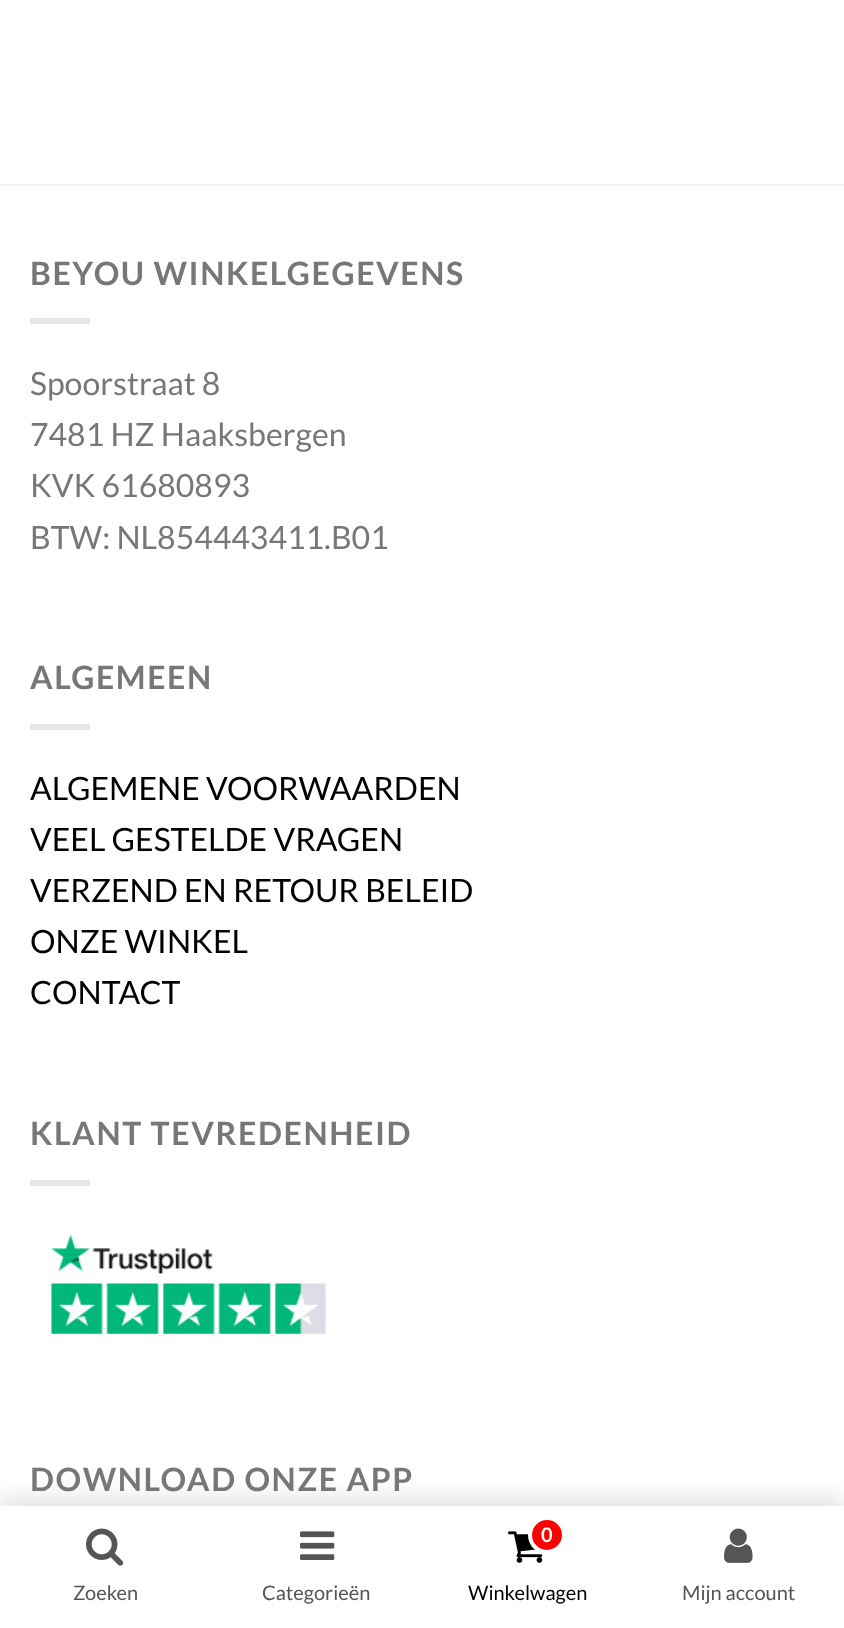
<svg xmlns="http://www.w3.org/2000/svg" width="844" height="1628">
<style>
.a{font:bold 32px Lato;letter-spacing:1.6px;fill:#777}
.b{font:32px Lato;fill:#777}
.c{font:32px Lato;fill:#000}
.d{font:20px Lato;fill:#555}
.e{font:bold 20px Lato;fill:#fff}
.f{font:20px Lato;fill:#000}
</style>
<rect width="100%" height="100%" fill="#fff"/>
<path fill="#f2f2f2" d="M0 184h844v2H0z"/>
<path fill="#e6e6e6" d="M30 318h60v6H30z"/>
<path fill="#e6e6e6" d="M30 724h60v6H30z"/>
<path fill="#e6e6e6" d="M30 1180h60v6H30z"/>
<image href="1.png" x="51" y="1234" width="276" height="101"/>
<path fill="#0000001a" filter="blur(10px)" d="M0 1496h844v122H0z"/>
<path fill="#fff" d="M0 1506h844v122H0z"/>
<image href="2.png" x="86" y="1528" width="38" height="38"/>
<image href="3.png" x="300" y="1531" width="35" height="29"/>
<image href="4.png" x="508" y="1531" width="35" height="32"/>
<circle fill="#f00" stroke="#fff" stroke-width="4" cx="547" cy="1535" r="17"/>
<image href="5.png" x="724" y="1528" width="29" height="35"/>
<text class="a" x="30" y="285">BEYOU WINKELGEGEVENS</text>
<text class="b" x="30" y="395">Spoorstraat 8</text>
<text class="b" x="30" y="446">7481 HZ Haaksbergen</text>
<text class="b" x="30" y="497">KVK 61680893</text>
<text class="b" x="30" y="549">BTW: NL854443411.B01</text>
<text class="a" x="30" y="689">ALGEMEEN</text>
<text class="c" x="30" y="800">ALGEMENE VOORWAARDEN</text>
<text class="c" x="30" y="851">VEEL GESTELDE VRAGEN</text>
<text class="c" x="30" y="902">VERZEND EN RETOUR BELEID</text>
<text class="c" x="30" y="953">ONZE WINKEL</text>
<text class="c" x="30" y="1004">CONTACT</text>
<text class="a" x="30" y="1145">KLANT TEVREDENHEID</text>
<text class="a" x="30" y="1491">DOWNLOAD ONZE APP</text>
<text class="d" x="73" y="1600">Zoeken</text>
<text class="d" x="262" y="1600">Categorieën</text>
<text class="e" x="541" y="1542">0</text>
<text class="f" x="468" y="1600">Winkelwagen</text>
<text class="d" x="682" y="1600">Mijn account</text>
</svg>
